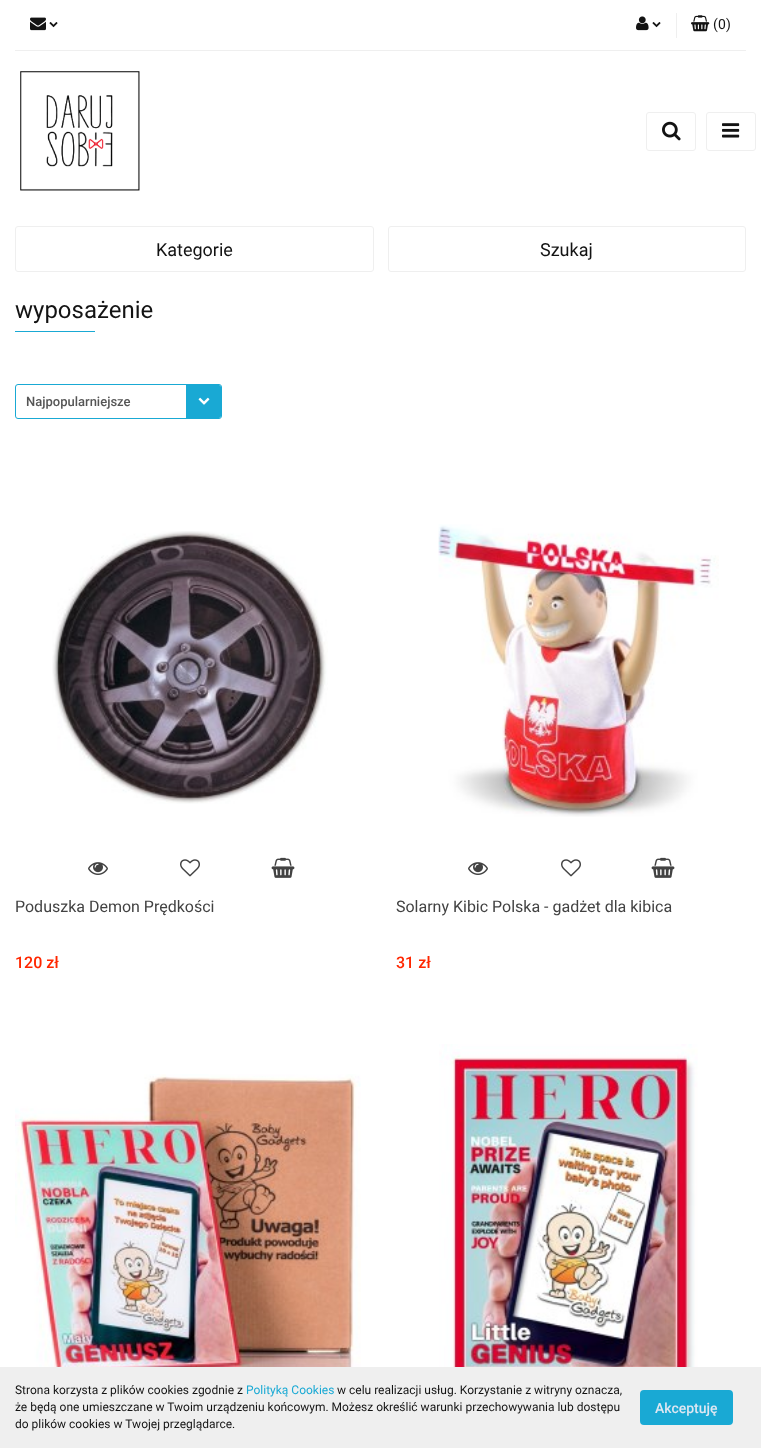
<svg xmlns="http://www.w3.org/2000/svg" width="761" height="1448">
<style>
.a{font:14px Roboto;fill:#131313}
.b{font:18px Roboto;fill:#131313}
.c{font:24px Roboto;fill:#131313}
.d{font:500 13px Roboto;fill:#555}
.e{font:16px Roboto;fill:#424242}
.f{font:500 16px Roboto;fill:#ff2700}
.g{font:12px Roboto;fill:#131313}
.h{font:12px Roboto;fill:#19a9d4}
.i{font:500 14px Roboto;fill:#dfe7f2}
</style>
<rect width="100%" height="100%" fill="#fff"/>
<path fill="#efefef" d="M15 50h731v1H15z"/>
<image href="1.png" x="30" y="17" width="16" height="14"/>
<image href="2.png" x="49" y="22" width="9" height="6"/>
<image href="3.png" x="636" y="16" width="13" height="15"/>
<image href="2.png" x="652" y="22" width="9" height="6"/>
<path fill="#efefef" d="M676 13h1v25H676z"/>
<image href="4.png" x="691" y="15" width="19" height="17"/>
<image href="5.png" x="20" y="71" width="120" height="120"/>
<rect fill="none" stroke="#efefef" x="646.5" y="112.5" width="49" height="38" rx="2.5"/>
<image href="6.png" x="662" y="121" width="19" height="20"/>
<rect fill="none" stroke="#efefef" x="706.5" y="112.5" width="49" height="38" rx="2.5"/>
<image href="7.png" x="722" y="123" width="18" height="15"/>
<rect fill="none" stroke="#efefef" x="15.5" y="226.5" width="358" height="45" rx="2.5"/>
<rect fill="none" stroke="#efefef" x="388.5" y="226.5" width="357" height="45" rx="2.5"/>
<path fill="#19a9d4" d="M15 331h80v1H15z"/>
<rect fill="none" stroke="#19a9d4" x="15.5" y="384.5" width="206" height="34" rx="2.5"/>
<path fill="#19a9d4" d="M186 385h33c1 0 2 1 2 2v29c0 1-1 2-2 2h-33z"/>
<image href="8.png" x="198" y="397" width="12" height="8"/>
<image href="9.png" x="52" y="531" width="276" height="273"/>
<image href="10.png" x="88" y="862" width="20" height="13"/>
<image href="11.png" x="180" y="859" width="20" height="18"/>
<image href="12.png" x="271" y="857" width="24" height="21"/>
<image href="13.png" x="438" y="524" width="281" height="293"/>
<image href="10.png" x="468" y="862" width="20" height="13"/>
<image href="11.png" x="561" y="859" width="20" height="18"/>
<image href="12.png" x="651" y="857" width="24" height="21"/>
<image href="14.png" x="15" y="1074" width="346" height="293"/>
<image href="15.png" x="439" y="1044" width="259" height="323"/>
<path fill="#efefef" d="M0 1367h761v81H0z"/>
<rect fill="#19a9d4" stroke="#19a9d4" stroke-width="3" x="641.5" y="1391.5" width="90" height="32" rx="2.5"/>
<text class="a" x="713" y="29">(</text>
<text class="a" x="718" y="29">0</text>
<text class="a" x="726" y="29">)</text>
<text class="b" x="156" y="256">Kategorie</text>
<text class="b" x="540" y="256">Szukaj</text>
<text class="c" x="15" y="318">wyposażenie</text>
<text class="d" x="26" y="406">Najpopularniejsze</text>
<text class="e" x="15" y="912">Poduszka Demon Prędkości</text>
<text class="f" x="15" y="968">120 zł</text>
<text class="e" x="396" y="912">Solarny Kibic Polska - gadżet dla kibica</text>
<text class="f" x="396" y="968">31 zł</text>
<text class="g" x="15" y="1394">Strona korzysta z plików cookies zgodnie z</text>
<text class="h" x="246" y="1394">Polityką Cookies</text>
<text class="g" x="337" y="1394">w celu realizacji usług. Korzystanie z witryny oznacza,</text>
<text class="g" x="15" y="1411">że będą one umieszczane w Twoim urządzeniu końcowym. Możesz określić warunki przechowywania lub dostępu</text>
<text class="g" x="15" y="1428">do plików cookies w Twojej przeglądarce.</text>
<text class="i" x="655" y="1413">Akceptuję</text>
</svg>
